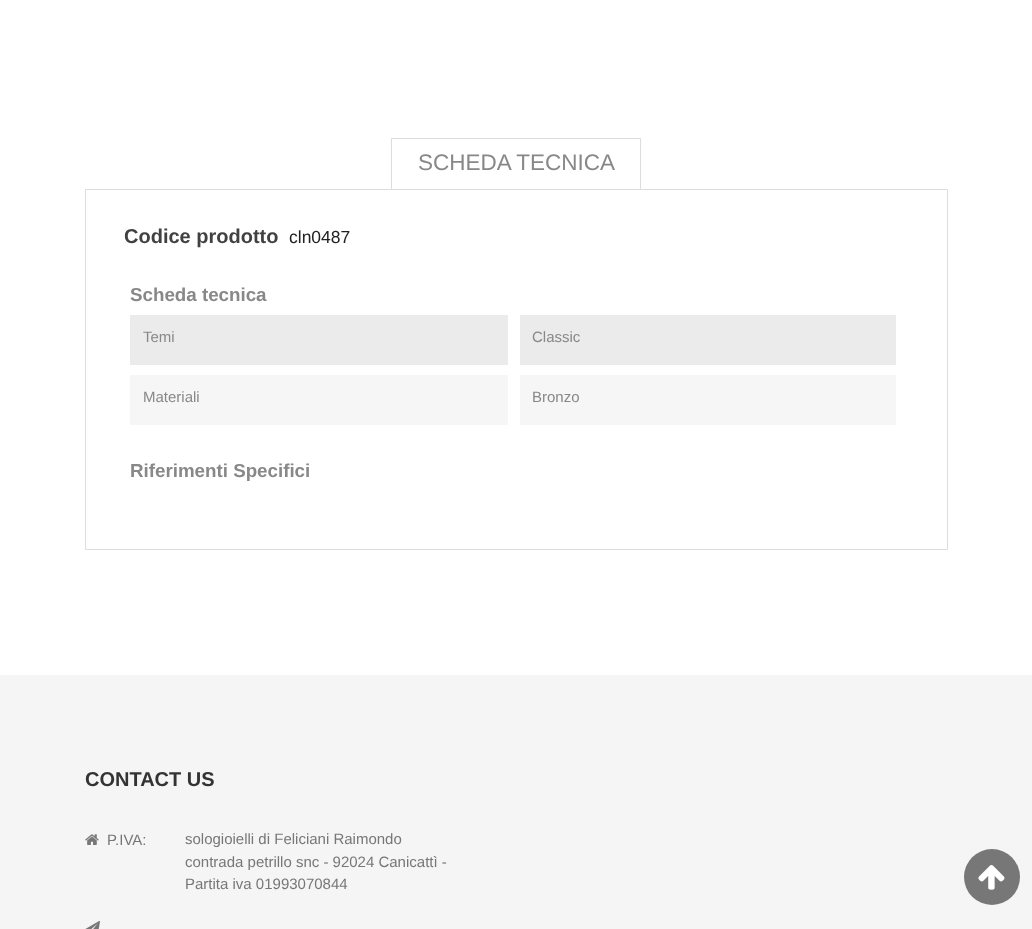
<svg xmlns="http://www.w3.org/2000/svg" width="1032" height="929">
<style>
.a{font:22.5px Liberation Sans;fill:#888}
.b{font:bold 20px Liberation Sans;fill:#414141}
.c{font:17.5px Liberation Sans;fill:#222}
.d{font:bold 18.75px Liberation Sans;fill:#888}
.e{font:15px Liberation Sans;fill:#888}
.f{font:bold 20px Liberation Sans;fill:#333}
.g{font:15px Liberation Sans;fill:#777}
</style>
<rect width="100%" height="100%" fill="#fff"/>
<path fill="none" stroke="#ddd" d="M85.5 189.5h862v360H85.5z"/>
<path fill="none" stroke="#ddd" d="M391.5 138.5h249v51H391.5z"/>
<path fill="#ebebeb" d="M130 315h378v50H130z"/>
<path fill="#ebebeb" d="M520 315h376v50H520z"/>
<path fill="#f6f6f6" d="M130 375h378v50H130z"/>
<path fill="#f6f6f6" d="M520 375h376v50H520z"/>
<path fill="#f5f5f5" d="M0 675h1032v254H0z"/>
<image href="1.png" x="85" y="834" width="14" height="11"/>
<image href="2.png" x="85" y="920" width="15" height="9"/>
<circle fill="#777" cx="992" cy="877" r="28"/>
<image href="3.png" x="978" y="865" width="27" height="25"/>
<text class="a" x="418" y="170">SCHEDA TECNICA</text>
<text class="b" x="124" y="243">Codice prodotto</text>
<text class="c" x="289" y="243">cln0487</text>
<text class="d" x="130" y="301">Scheda tecnica</text>
<text class="e" x="143" y="342">Temi</text>
<text class="e" x="532" y="342">Classic</text>
<text class="e" x="143" y="402">Materiali</text>
<text class="e" x="532" y="402">Bronzo</text>
<text class="d" x="130" y="477">Riferimenti Specifici</text>
<text class="f" x="85" y="786">CONTACT US</text>
<text class="g" x="107" y="845">P.IVA:</text>
<text class="g" x="185" y="844">sologioielli di Feliciani Raimondo</text>
<text class="g" x="185" y="867">contrada petrillo snc - 92024 Canicattì -</text>
<text class="g" x="185" y="889">Partita iva 01993070844</text>
</svg>
